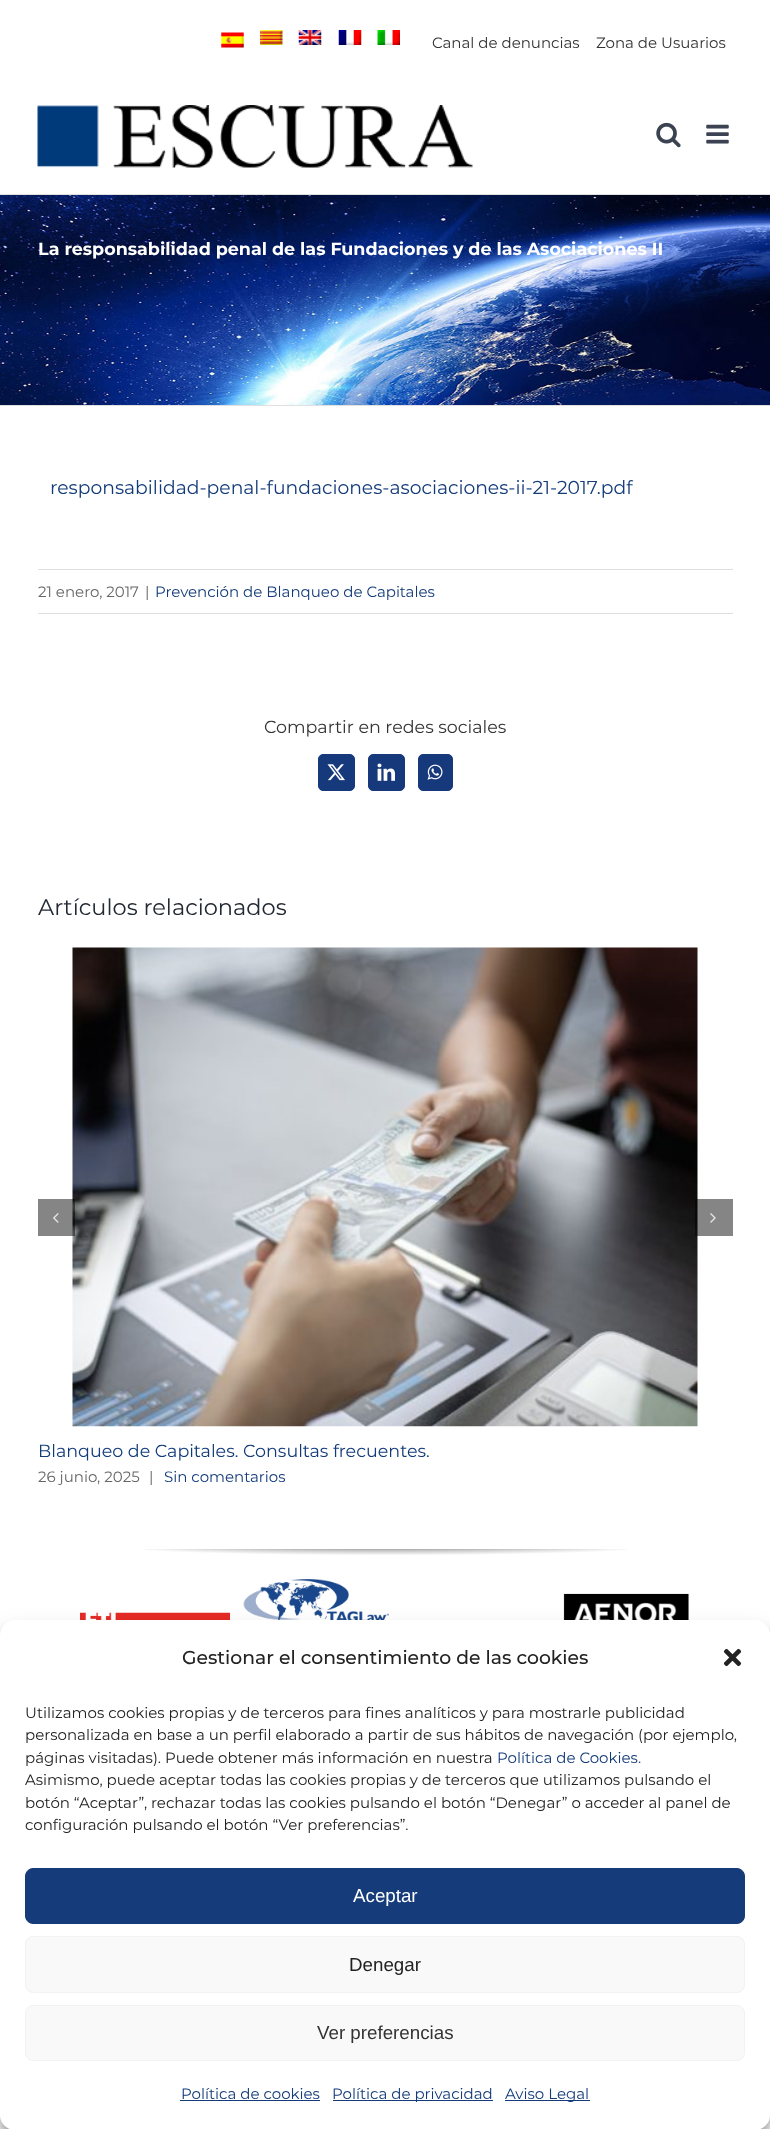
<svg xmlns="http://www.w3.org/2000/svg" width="770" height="2129">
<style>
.a{font:15px Montserrat;fill:#333}
.b{font:bold 17.5px Montserrat;fill:#fff}
.c{font:18.75px Montserrat;fill:#133b79}
.d{font:15px Montserrat;fill:#666}
.e{font:15px Montserrat;fill:#133b79}
.f{font:17.5px Montserrat;fill:#333}
.g{font:22.5px Montserrat;fill:#212934}
.h{font:17.5px Montserrat;fill:#133b79}
.i{font:500 18.75px Montserrat;fill:#222}
.j{font:15px Montserrat;fill:#222}
.k{font:18.75px Liberation Sans;fill:#fff}
.l{font:18.75px Liberation Sans;fill:#222}
.m{font:18.75px Liberation Sans;fill:#333}
</style>
<defs>
<radialGradient id="g1" gradientUnits="userSpaceOnUse" cx="0" cy="0" r="1" gradientTransform="matrix(438 0 0 2.7 385 1548)"><stop offset="0" stop-color="#e0dede"/><stop offset="0.8" stop-color="#fff"/></radialGradient>
<radialGradient id="g2" gradientUnits="userSpaceOnUse" cx="0" cy="0" r="1" gradientTransform="matrix(438 0 0 16 385 1545)"><stop offset="0" stop-color="#000" stop-opacity="0.5"/><stop offset="0.65" stop-color="#000" stop-opacity="0"/></radialGradient>
</defs>
<rect width="100%" height="100%" fill="#fff"/>
<image href="1.png" x="221" y="32" width="23" height="16"/>
<image href="2.png" x="260" y="30" width="23" height="15"/>
<image href="3.png" x="298" y="30" width="24" height="15"/>
<image href="4.png" x="338" y="30" width="24" height="15"/>
<image href="5.png" x="377" y="30" width="23" height="15"/>
<image href="6.png" x="37" y="105" width="436" height="63"/>
<image href="7.png" x="656" y="122" width="25" height="26"/>
<image href="8.png" x="706" y="124" width="23" height="20"/>
<image href="9.png" x="0" y="195" width="770" height="210"/>
<path fill="#e0e0e0" d="M0 194h770v1H0z"/>
<path fill="#e0e0e0" d="M0 405h770v1H0z"/>
<path fill="#e0dede" d="M38 569h695v1H38z"/>
<path fill="#e0dede" d="M38 613h695v1H38z"/>
<rect fill="#16397b" stroke="#16397b" x="318.5" y="754.5" width="36" height="36" rx="4.5"/>
<image href="10.png" x="327" y="764" width="18" height="17"/>
<rect fill="#16397b" stroke="#16397b" x="368.5" y="754.5" width="36" height="36" rx="4.5"/>
<image href="11.png" x="377" y="763" width="18" height="18"/>
<rect fill="#16397b" stroke="#16397b" x="418.5" y="754.5" width="34" height="36" rx="4.5"/>
<image href="12.png" x="427" y="764" width="16" height="16"/>
<image href="15.png" x="72" y="947" width="626" height="480"/>
<path fill="#0000007a" d="M38 1199h37v37H38z"/>
<image href="13.png" x="53" y="1213" width="6" height="10"/>
<path fill="#0000007a" d="M695 1199h38v37H695z"/>
<image href="14.png" x="710" y="1213" width="6" height="10"/>
<path fill="url(#g1)" d="M172 1549h426v1H172z"/>
<path fill="url(#g2)" d="M143 1549h484v6H143z"/>
<image href="16.png" x="80" y="1612" width="150" height="8"/>
<image href="17.png" x="243" y="1579" width="146" height="41"/>
<image href="18.png" x="563" y="1593" width="126" height="27"/>
<rect fill="#0000003b" filter="blur(4px)" y="1628" width="770" height="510" rx="15"/>
<rect fill="#00000030" filter="blur(12.5px)" y="1633" width="770" height="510" rx="15"/>
<rect fill="#808080" filter="blur(3px)" x="683" y="2038" width="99" height="75" rx="2.5"/>
<rect fill="#fff" y="1620" width="770" height="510" rx="15"/>
<image href="19.png" x="723" y="1648" width="19" height="19"/>
<rect fill="#153b7a" stroke="#153b7a" x="25.5" y="1868.5" width="719" height="55" rx="7.5"/>
<rect fill="#f9f9f9" stroke="#f2f2f2" x="25.5" y="1936.5" width="719" height="56" rx="7.5"/>
<rect fill="#f9f9f9" stroke="#f2f2f2" x="25.5" y="2005.5" width="719" height="55" rx="7.5"/>
<path fill="#153b7a" d="M180 2100h140v1H180z"/>
<path fill="#153b7a" d="M333 2100h160v1H333z"/>
<path fill="#153b7a" d="M505 2100h85v1H505z"/>
<text class="a" x="432" y="48">Canal de denuncias</text>
<text class="a" x="596" y="48">Zona de Usuarios</text>
<text class="b" x="38" y="255">La responsabilidad penal de las Fundaciones y de las Asociaciones II</text>
<text class="c" x="50" y="494">responsabilidad-penal-fundaciones-asociaciones-ii-21-2017.pdf</text>
<text class="d" x="38" y="597">21 enero, 2017</text>
<text class="d" x="145" y="597">|</text>
<text class="e" x="155" y="597">Prevención de Blanqueo de Capitales</text>
<text class="f" x="264" y="733">Compartir en redes sociales</text>
<text class="g" x="38" y="915">Artículos relacionados</text>
<text class="h" x="38" y="1457">Blanqueo de Capitales. Consultas frecuentes.</text>
<text class="d" x="38" y="1482">26 junio, 2025</text>
<text class="d" x="149" y="1482">|</text>
<text class="e" x="164" y="1482">Sin comentarios</text>
<text class="i" x="182" y="1664">Gestionar el consentimiento de las cookies</text>
<text class="j" x="25" y="1718">Utilizamos cookies propias y de terceros para fines analíticos y para mostrarle publicidad</text>
<text class="j" x="25" y="1740">personalizada en base a un perfil elaborado a partir de sus hábitos de navegación (por ejemplo,</text>
<text class="j" x="25" y="1763">páginas visitadas). Puede obtener más información en nuestra</text>
<text class="e" x="497" y="1763">Política de Cookies.</text>
<text class="j" x="25" y="1785">Asimismo, puede aceptar todas las cookies propias y de terceros que utilizamos pulsando el</text>
<text class="j" x="25" y="1808">botón “Aceptar”, rechazar todas las cookies pulsando el botón “Denegar” o acceder al panel de</text>
<text class="j" x="25" y="1830">configuración pulsando el botón “Ver preferencias”.</text>
<text class="k" x="353" y="1902">Aceptar</text>
<text class="l" x="349" y="1971">Denegar</text>
<text class="m" x="317" y="2039">Ver preferencias</text>
<text class="e" x="181" y="2099">Política de cookies</text>
<text class="e" x="332" y="2099">Política de privacidad</text>
<text class="e" x="505" y="2099">Aviso Legal</text>
</svg>
